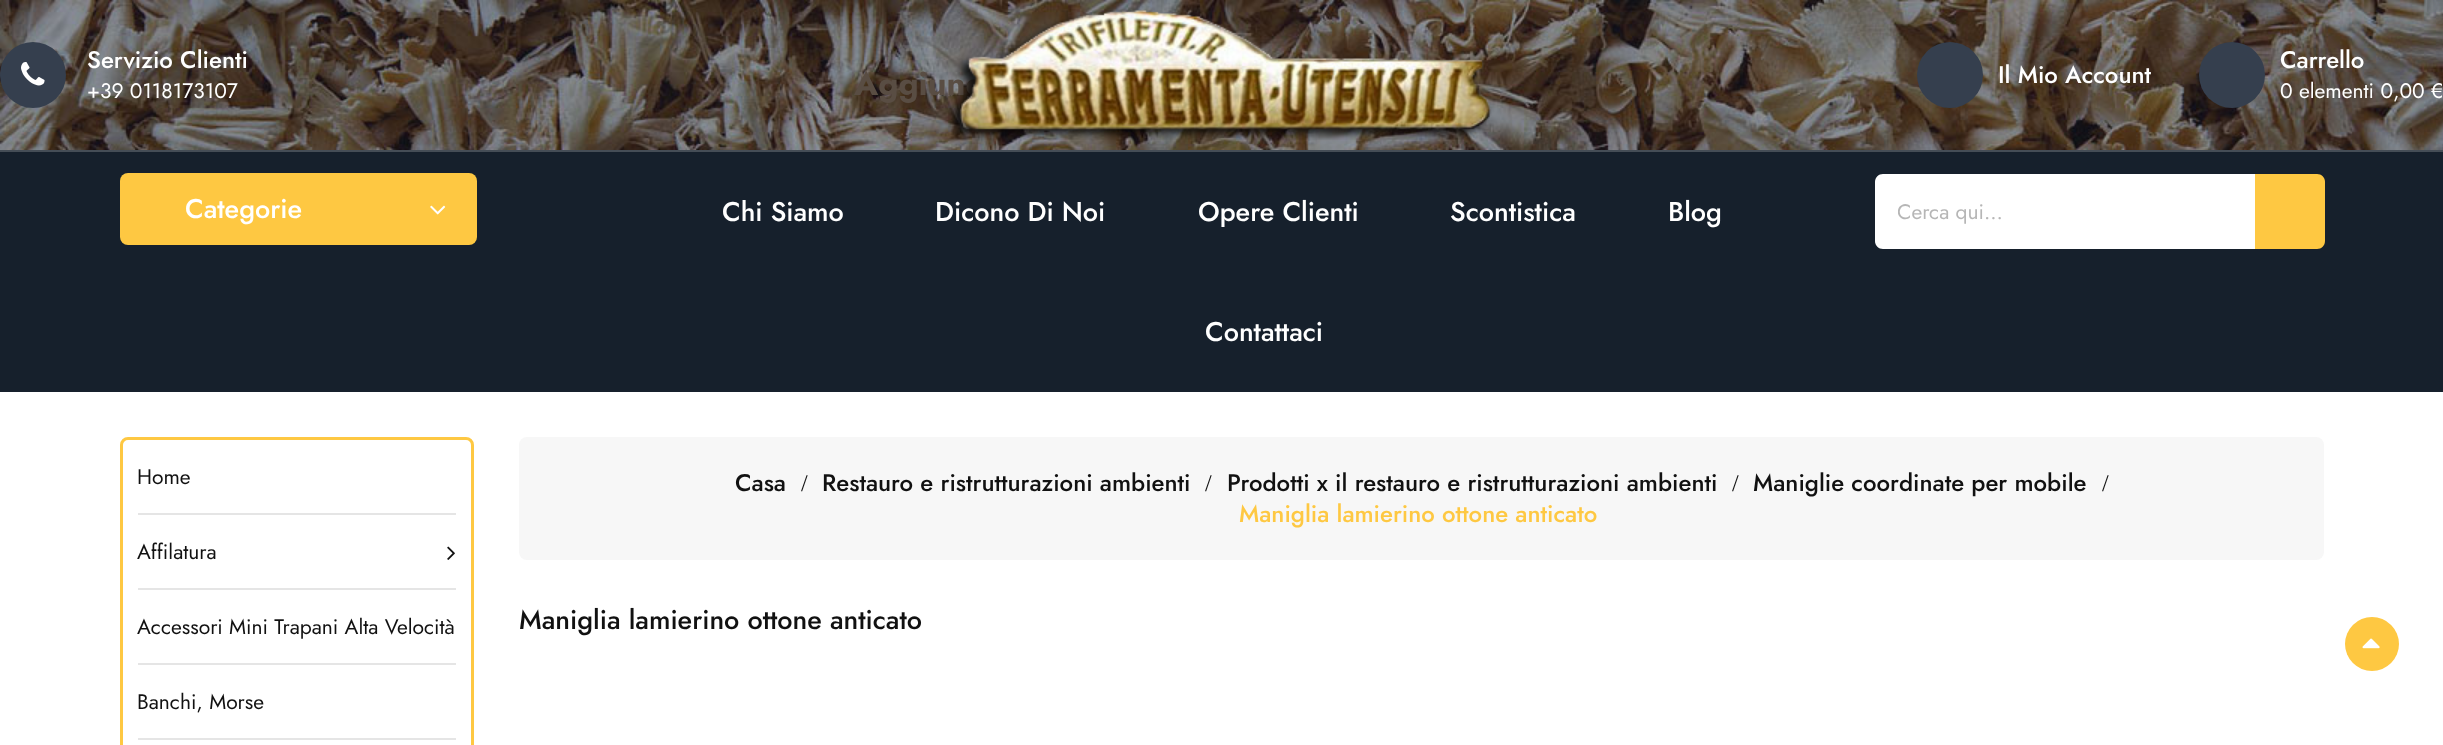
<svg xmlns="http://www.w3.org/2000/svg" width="2443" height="745">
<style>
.a{font:500 24px Jost;fill:#fff}
.b{font:21px Jost;fill:#fff}
.c{font:500 27px Jost;fill:#fff}
.d{font:21px Jost;fill:#b6b6b6}
.e{font:21px Jost;fill:#111}
.f{font:500 24px Jost;fill:#111}
.g{font:24px Liberation Serif;fill:#111}
.h{font:500 24px Jost;fill:#fec842}
.i{font:500 27px Jost;fill:#111}
.j{font:bold 33px Jost;fill:#594d43}
</style>
<defs>
<clipPath id="clip1"><path d="M1898 197h334v30H1898z"/></clipPath>
</defs>
<rect width="100%" height="100%" fill="#fff"/>
<path fill="#16202c" d="M0 152h2443v240H0z"/>
<image href="1.png" x="0" y="0" width="2443" height="150"/>
<circle fill="#353f4e" cx="33" cy="75" r="33"/>
<image href="2.png" x="21" y="62" width="24" height="24"/>
<circle fill="#353f4e" cx="1950" cy="75" r="33"/>
<circle fill="#353f4e" cx="2232" cy="75" r="33"/>
<path fill="#454d56" d="M0 150h2443v2H0z"/>
<rect fill="#fec842" x="120" y="173" width="357" height="72" rx="8"/>
<image href="4.png" x="430" y="205" width="16" height="10"/>
<path fill="#fff" d="M1883 174h372v75h-372c-4.5 0-8-3.5-8-8v-59c0-4.5 3.5-8 8-8z"/>
<path fill="#fec842" d="M2255 174h62c4.5 0 8 3.5 8 8v59c0 4.5-3.5 8-8 8h-62z"/>
<rect fill="none" stroke="#fec842" stroke-width="3" x="121.5" y="438.5" width="351" height="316" rx="6.5"/>
<path fill="#e5e5e5" d="M138 513h318v2H138z"/>
<path fill="#e5e5e5" d="M138 588h318v2H138z"/>
<image href="5.png" x="447" y="546" width="8" height="14"/>
<path fill="#e5e5e5" d="M138 663h318v2H138z"/>
<path fill="#e5e5e5" d="M138 738h318v2H138z"/>
<rect fill="#f7f7f7" x="519" y="437" width="1805" height="123" rx="8"/>
<circle fill="#fec842" cx="2372" cy="644" r="27"/>
<image href="6.png" x="2362" y="638" width="18" height="11"/>
<text class="a" x="87" y="68">Servizio Clienti</text>
<text class="b" x="87" y="98">+39 0118173107</text>
<text class="a" x="1998" y="83">Il Mio Account</text>
<text class="a" x="2280" y="68">Carrello</text>
<text class="b" x="2280" y="98">0 elementi 0,00 €</text>
<text class="c" x="185" y="218">Categorie</text>
<text class="c" x="722" y="221">Chi Siamo</text>
<text class="c" x="935" y="221">Dicono Di Noi</text>
<text class="c" x="1198" y="221">Opere Clienti</text>
<text class="c" x="1450" y="221">Scontistica</text>
<text class="c" x="1668" y="221">Blog</text>
<text class="c" x="1205" y="341">Contattaci</text>
<g clip-path="url(#clip1)">
<text class="d" x="1897" y="219">Cerca qui...</text>
</g>
<text class="e" x="137" y="484">Home</text>
<text class="e" x="137" y="559">Affilatura</text>
<text class="e" x="137" y="634">Accessori Mini Trapani Alta Velocità</text>
<text class="e" x="137" y="709">Banchi, Morse</text>
<text class="f" x="735" y="491">Casa</text>
<text class="g" x="801" y="491">/</text>
<text class="f" x="822" y="491">Restauro e ristrutturazioni ambienti</text>
<text class="g" x="1205" y="491">/</text>
<text class="f" x="1227" y="491">Prodotti x il restauro e ristrutturazioni ambienti</text>
<text class="g" x="1732" y="491">/</text>
<text class="f" x="1753" y="491">Maniglie coordinate per mobile</text>
<text class="g" x="2102" y="491">/</text>
<text class="h" x="1239" y="522">Maniglia lamierino ottone anticato</text>
<text class="i" x="519" y="629">Maniglia lamierino ottone anticato</text>
<text class="j" x="854" y="95">Aggiung</text>
<image href="3.png" x="948" y="10" width="544" height="130"/>
</svg>
